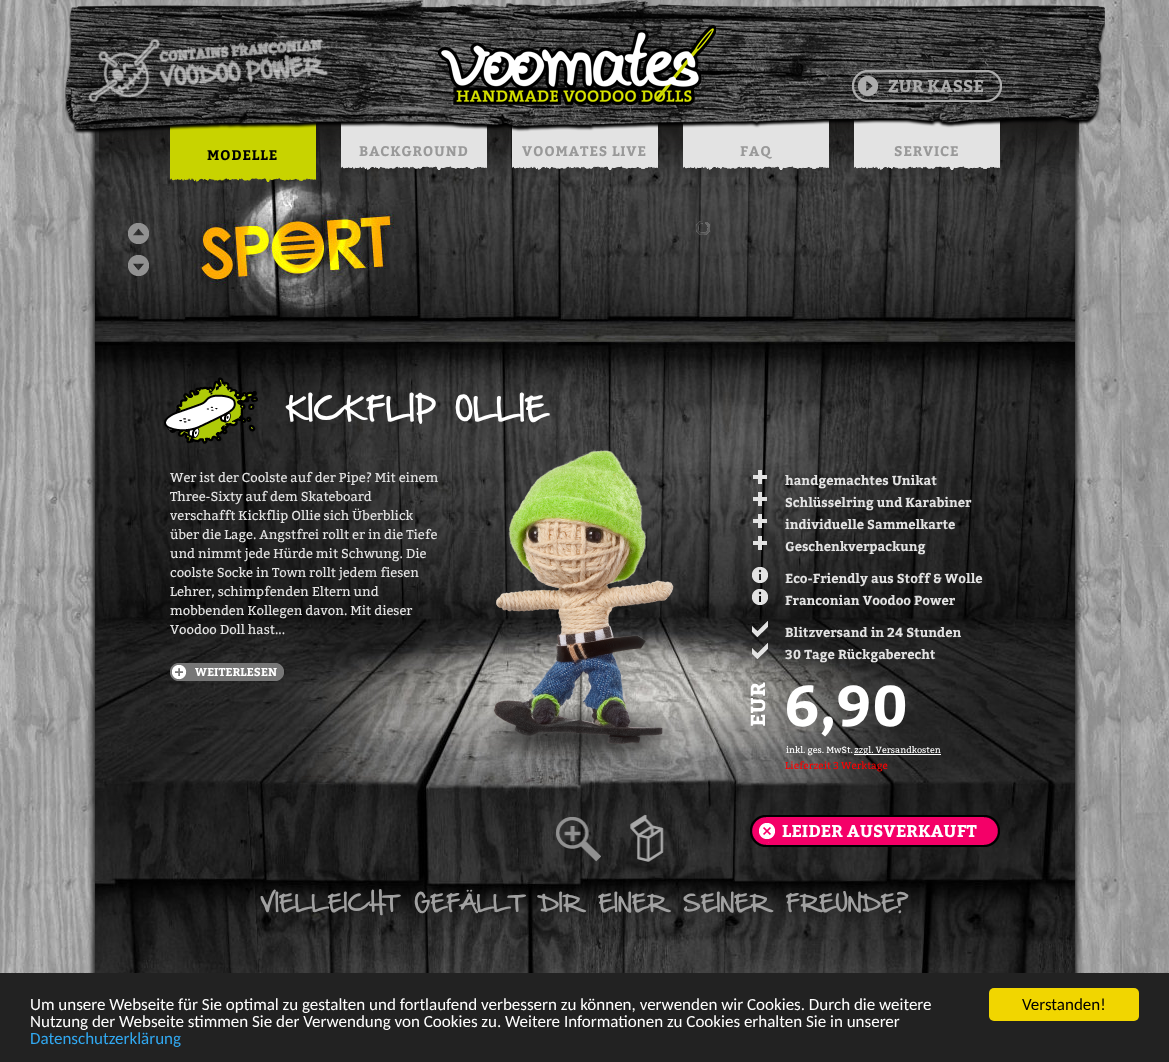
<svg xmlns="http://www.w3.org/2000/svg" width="1169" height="1062">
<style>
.a{font:bold 17px Bitter;fill:#acacac}
.b{font:bold 14px Bitter;letter-spacing:0.75px;fill:#000}
.c{font:bold 14px Bitter;letter-spacing:0.75px;fill:#999}
.d{font:28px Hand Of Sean;fill:#fff}
.e{font:bold 13px Bitter;fill:#e3e3e3}
.f{font:bold 57px Bitter;fill:#fff}
.g{font:9px Bitter;fill:#fff}
.h{font:10px Bitter;fill:#f00}
.i{font:bold 17px Bitter;fill:#fff}
.j{font:13px Bitter;fill:#e3e3e3}
.k{font:bold 11.5px Bitter;fill:#fff}
.l{font:20px Hand Of Sean;fill:#a1a1a1}
.m{font:17px Carlito;fill:#fff}
.n{font:17px Carlito;fill:#31a8f0}
.o{font:17px Carlito;fill:#000}
</style>
<rect width="100%" height="100%" fill="#fff"/>
<image href="1.png" x="0" y="0" width="1169" height="973"/>
<image href="16.png" x="95" y="120" width="980" height="853"/>
<image href="18.png" x="1075" y="120" width="7" height="853"/>
<image href="5.png" x="99" y="117" width="980" height="60"/>
<image href="21.png" x="170" y="181" width="247" height="138"/>
<image href="6.png" x="170" y="122" width="146" height="60"/>
<image href="7.png" x="341" y="122" width="146" height="48"/>
<image href="9.png" x="512" y="123" width="146" height="47"/>
<image href="11.png" x="683" y="120" width="146" height="50"/>
<image href="13.png" x="854" y="120" width="146" height="50"/>
<image href="15.png" x="88" y="129" width="7" height="844"/>
<image href="2.png" x="65" y="0" width="1040" height="134"/>
<image href="3.png" x="88" y="25" width="628" height="80"/>
<image href="4.png" x="852" y="70" width="150" height="32"/>
<image href="8.png" x="341" y="166" width="146" height="4"/>
<image href="10.png" x="512" y="166" width="146" height="4"/>
<image href="12.png" x="683" y="166" width="146" height="4"/>
<image href="14.png" x="854" y="166" width="146" height="4"/>
<image href="17.png" x="489" y="702" width="182" height="68"/>
<image href="19.png" x="128" y="223" width="21" height="21"/>
<image href="20.png" x="128" y="255" width="21" height="21"/>
<image href="22.png" x="696" y="221" width="14" height="14"/>
<image href="23.png" x="164" y="377" width="94" height="67"/>
<image href="24.png" x="494" y="449" width="180" height="295"/>
<image href="25.png" x="556" y="817" width="45" height="45"/>
<image href="26.png" x="630" y="814" width="34" height="48"/>
<image href="27.png" x="753" y="470" width="14" height="14"/>
<image href="28.png" x="753" y="492" width="14" height="14"/>
<image href="29.png" x="753" y="514" width="14" height="14"/>
<image href="30.png" x="753" y="536" width="14" height="14"/>
<image href="31.png" x="752" y="567" width="16" height="16"/>
<image href="32.png" x="752" y="589" width="16" height="16"/>
<image href="33.png" x="752" y="621" width="16" height="16"/>
<image href="34.png" x="752" y="643" width="16" height="16"/>
<image href="35.png" x="750" y="682" width="16" height="44"/>
<path fill="#fff" d="M854 754h87v1H854z"/>
<image href="36.png" x="750" y="815" width="250" height="32"/>
<image href="37.png" x="170" y="663" width="114" height="18"/>
<path fill="#222" d="M0 973h1169v89H0z"/>
<rect fill="#f1d600" x="989" y="988" width="150" height="33" rx="5"/>
<text class="a" x="888" y="92">ZUR KASSE</text>
<text class="b" x="207" y="160">MODELLE</text>
<text class="c" x="359" y="156">BACKGROUND</text>
<text class="c" x="522" y="156">VOOMATES LIVE</text>
<text class="c" x="740" y="156">FAQ</text>
<text class="c" x="894" y="156">SERVICE</text>
<text class="d" x="285" y="420" word-spacing="10">KICKFLIP OLLIE</text>
<text class="e" x="785" y="485">handgemachtes Unikat</text>
<text class="e" x="785" y="507">Schlüsselring und Karabiner</text>
<text class="e" x="785" y="529">individuelle Sammelkarte</text>
<text class="e" x="785" y="551">Geschenkverpackung</text>
<text class="e" x="785" y="583">Eco-Friendly aus Stoff &amp; Wolle</text>
<text class="e" x="785" y="605">Franconian Voodoo Power</text>
<text class="e" x="785" y="637">Blitzversand in 24 Stunden</text>
<text class="e" x="785" y="659">30 Tage Rückgaberecht</text>
<text class="f" x="784" y="726">6,90</text>
<text class="g" x="786" y="753">inkl. ges. MwSt.</text>
<text class="g" x="854" y="753">zzgl. Versandkosten</text>
<text class="h" x="785" y="769">Lieferzeit 3 Werktage</text>
<text class="i" x="782" y="837">LEIDER AUSVERKAUFT</text>
<text class="j" x="170" y="482">Wer ist der Coolste auf der Pipe? Mit einem</text>
<text class="j" x="170" y="501">Three-Sixty auf dem Skateboard</text>
<text class="j" x="170" y="520">verschafft Kickflip Ollie sich Überblick</text>
<text class="j" x="170" y="539">über die Lage. Angstfrei rollt er in die Tiefe</text>
<text class="j" x="170" y="558">und nimmt jede Hürde mit Schwung. Die</text>
<text class="j" x="170" y="577">coolste Socke in Town rollt jedem fiesen</text>
<text class="j" x="170" y="596">Lehrer, schimpfenden Eltern und</text>
<text class="j" x="170" y="615">mobbenden Kollegen davon. Mit dieser</text>
<text class="j" x="170" y="634">Voodoo Doll hast...</text>
<text class="k" x="195" y="676">WEITERLESEN</text>
<text class="l" x="260" y="911" word-spacing="10">VIELLEICHT GEFÄLLT DIR EINER SEINER FREUNDE?</text>
<text class="m" x="30" y="1010">Um unsere Webseite für Sie optimal zu gestalten und fortlaufend verbessern zu können, verwenden wir Cookies. Durch die weitere</text>
<text class="m" x="30" y="1027">Nutzung der Webseite stimmen Sie der Verwendung von Cookies zu. Weitere Informationen zu Cookies erhalten Sie in unserer</text>
<text class="n" x="30" y="1044">Datenschutzerklärung</text>
<text class="o" x="1022" y="1010">Verstanden!</text>
</svg>
